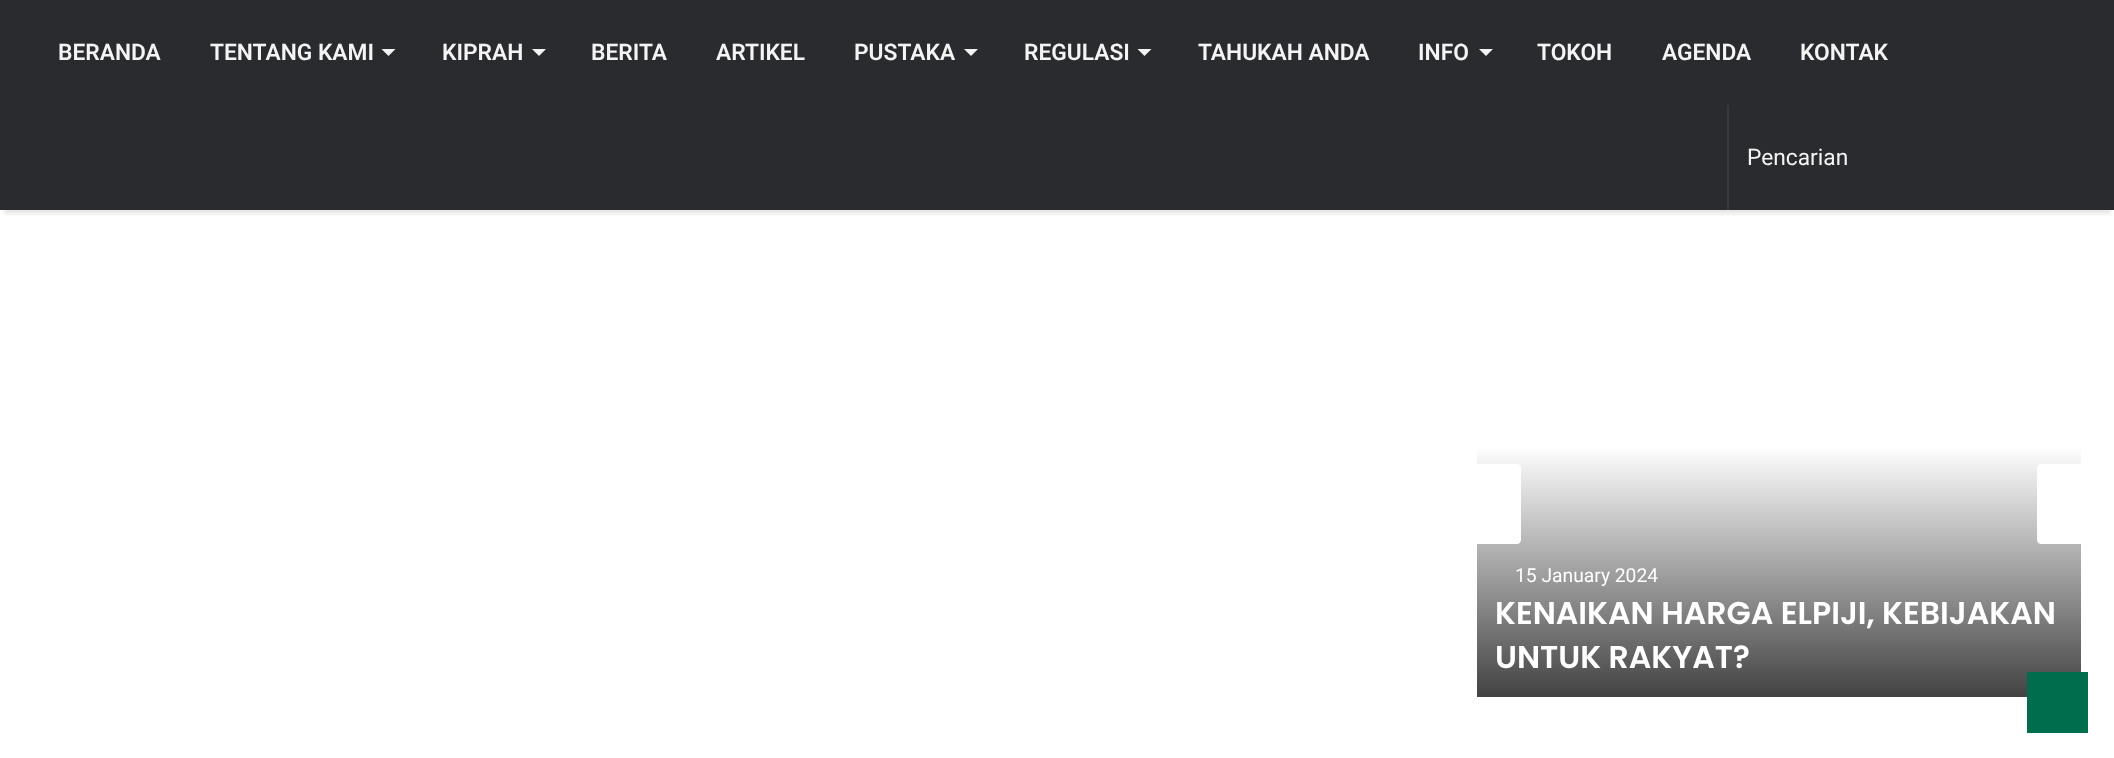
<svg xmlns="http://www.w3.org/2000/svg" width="2114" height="758">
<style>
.a{font:600 22.75px Roboto;fill:#f4f4f5}
.b{font:22.75px Roboto;fill:#f4f4f5}
.c{font:19.25px Roboto;fill:#fff}
.d{font:600 31.5px Poppins;fill:#fff}
</style>
<defs>
<clipPath id="clip1"><path d="M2 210h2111v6H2z"/></clipPath>
<linearGradient id="g1" gradientUnits="userSpaceOnUse" x1="1779" y1="446" x2="1779" y2="697"><stop offset="0" stop-color="#fff"/><stop offset="1" stop-color="#424242"/></linearGradient>
</defs>
<rect width="100%" height="100%" fill="#fff"/>
<path fill="#2a2b2f" d="M0 0h2114v210H0z"/>
<g clip-path="url(#clip1)">
<path fill="#0000001a" filter="blur(2px)" d="M4 11h2107v203H4z"/>
</g>
<path fill="#f4f4f5" d="M381.5 49h14l-7 7z"/>
<path fill="#f4f4f5" d="M532 49h14l-7 7z"/>
<path fill="#f4f4f5" d="M964 49h14l-7 7z"/>
<path fill="#f4f4f5" d="M1137.5 49h14l-7 7z"/>
<path fill="#f4f4f5" d="M1479 49h14l-7 7z"/>
<path fill="#ffffff12" d="M1727 105h2v105H1727z"/>
<path fill="url(#g1)" d="M1477 449h604v248H1477z"/>
<path fill="#fff" d="M1477 464h40c2 0 4 2 4 4v72c0 2-2 4-4 4h-40z"/>
<path fill="#fff" d="M2041 464h40v80h-40c-2 0-4-2-4-4v-72c0-2 2-4 4-4z"/>
<path fill="#006d4c" d="M2027 672h61v61H2027z"/>
<text class="a" x="58" y="60">BERANDA</text>
<text class="a" x="210" y="60">TENTANG KAMI</text>
<text class="a" x="442" y="60">KIPRAH</text>
<text class="a" x="591" y="60">BERITA</text>
<text class="a" x="716" y="60">ARTIKEL</text>
<text class="a" x="854" y="60">PUSTAKA</text>
<text class="a" x="1024" y="60">REGULASI</text>
<text class="a" x="1198" y="60">TAHUKAH ANDA</text>
<text class="a" x="1418" y="60">INFO</text>
<text class="a" x="1537" y="60">TOKOH</text>
<text class="a" x="1662" y="60">AGENDA</text>
<text class="a" x="1800" y="60">KONTAK</text>
<text class="b" x="1747" y="165">Pencarian</text>
<text class="c" x="1515" y="582">15 January 2024</text>
<text class="d" x="1495" y="624">KENAIKAN HARGA ELPIJI, KEBIJAKAN</text>
<text class="d" x="1495" y="668">UNTUK RAKYAT?</text>
</svg>
